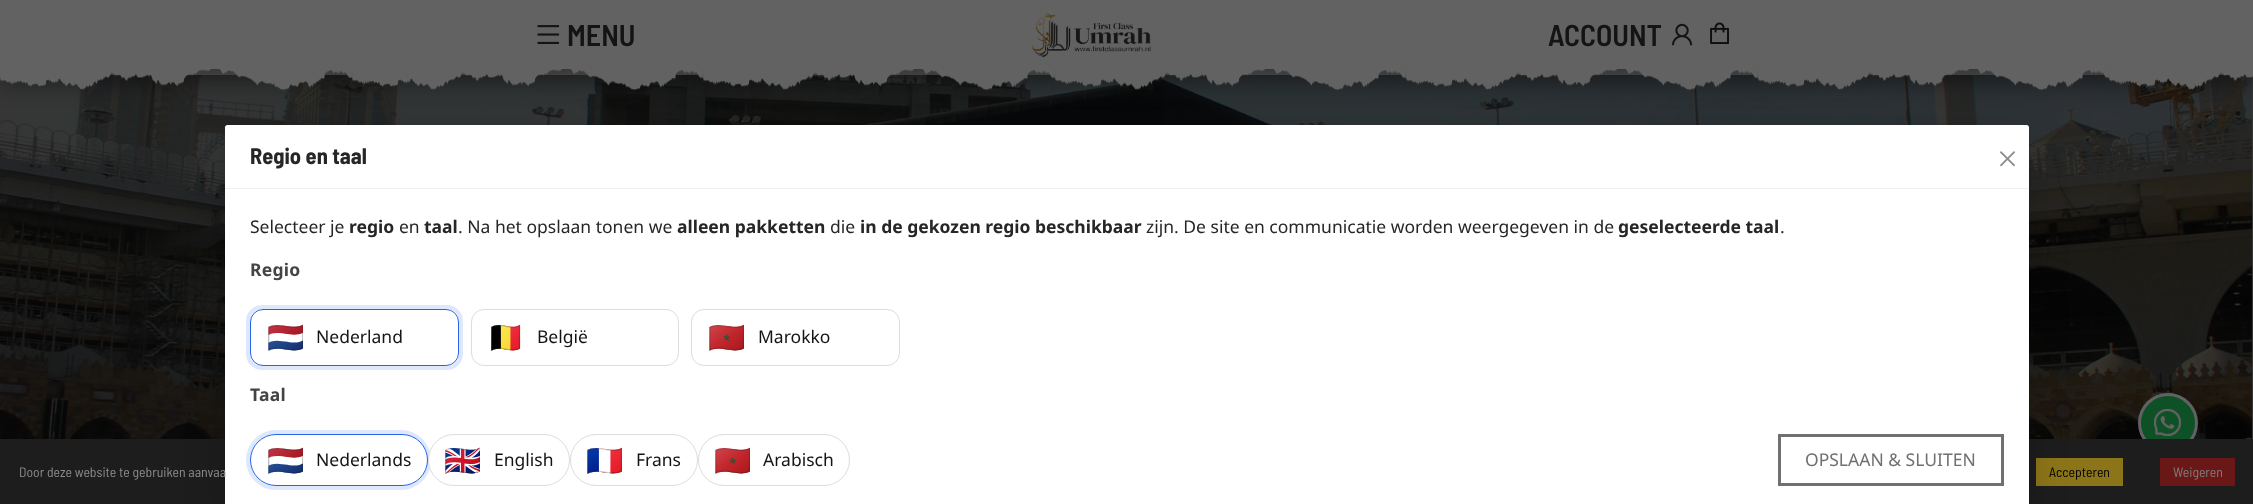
<svg xmlns="http://www.w3.org/2000/svg" width="2253" height="504">
<style>
.a{font:600 30px Barlow Semi Condensed;fill:#141414}
.b{font:13.75px Barlow Semi Condensed;fill:#8c8c8c}
.c{font:13.75px Barlow Semi Condensed;fill:#000}
.d{font:13.75px Barlow Semi Condensed;fill:#7e7e7e}
.e{font:bold 22.5px Barlow Semi Condensed;fill:#262626}
.f{font:17.5px Noto Sans;fill:#262626}
.g{font:bold 17.5px Noto Sans;fill:#262626}
.h{font:bold 17.5px Noto Sans;letter-spacing:0.25px;fill:#444}
.i{font:30px Noto Color Emoji;fill:#262626}
.j{font:17.5px Noto Sans;fill:#141414}
.k{font:17.5px Noto Sans;fill:#707070}
</style>
<defs>
<clipPath id="clip1"><path d="M494 450h60v20H494z"/></clipPath>
</defs>
<rect width="100%" height="100%" fill="#626262"/>
<image href="6.png" x="0" y="75" width="2253" height="364"/>
<path fill="#00000080" filter="blur(13px)" d="M0 13h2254v68H0z"/>
<path fill="#626262" d="M0 0h2253v69H0z"/>
<image href="1.png" x="537" y="25" width="23" height="19"/>
<image href="2.png" x="1032" y="12" width="119" height="46"/>
<image href="3.png" x="1672" y="23" width="21" height="23"/>
<image href="4.png" x="1710" y="22" width="19" height="22"/>
<image href="5.png" x="0" y="69" width="2253" height="22"/>
<circle fill="#0e5127" stroke="#626262" stroke-width="3" cx="2168" cy="423" r="28.5"/>
<image href="7.png" x="2154" y="409" width="27" height="27"/>
<path fill="#1d1d1d" d="M0 439h2253v65H0z"/>
<path fill="#8c7519" d="M2036 458h87v28H2036z"/>
<path fill="#6a1717" d="M2160 458h75v28H2160z"/>
<rect fill="#0000002e" filter="blur(19px)" x="225" y="138" width="1804" height="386" rx="2.5"/>
<path fill="#fff" d="M227.5 125h1799c1.5 0 2.5 1 2.5 2.5v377.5h-1804v-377.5c0-1.5 1-2.5 2.5-2.5z"/>
<path fill="#f0f0f0" d="M225 188h1804v1H225z"/>
<image href="8.png" x="2000" y="151" width="15" height="16"/>
<rect fill="none" stroke="#dee8fc" stroke-width="4" x="248" y="307" width="213" height="61" rx="14"/>
<rect fill="#fff" stroke="#2563eb" x="250.5" y="309.5" width="208" height="56" rx="12.5"/>
<rect fill="none" stroke="#ddd" x="471.5" y="309.5" width="207" height="56" rx="12.5"/>
<rect fill="none" stroke="#ddd" x="691.5" y="309.5" width="208" height="56" rx="12.5"/>
<rect fill="none" stroke="#dee8fc" stroke-width="4" x="248" y="432" width="181" height="56" rx="28"/>
<rect fill="#fff" stroke="#2563eb" x="250.5" y="434.5" width="177" height="51" rx="25.5"/>
<rect fill="#fff" stroke="#ddd" x="428.5" y="434.5" width="141" height="51" rx="25.5"/>
<rect fill="none" stroke="#ddd" x="570.5" y="434.5" width="127" height="51" rx="25.5"/>
<rect fill="none" stroke="#ddd" x="698.5" y="434.5" width="151" height="51" rx="25.5"/>
<path fill="none" stroke="#707070" stroke-width="3" d="M1779.5 435.5h223v49H1779.5z"/>
<text class="a" x="567" y="46">MENU</text>
<text class="a" x="1548" y="46">ACCOUNT</text>
<text class="b" x="19" y="477">Door deze website te gebruiken aanvaa</text>
<text class="c" x="2049" y="477">Accepteren</text>
<text class="d" x="2173" y="477">Weigeren</text>
<text class="e" x="250" y="164">Regio en taal</text>
<text class="f" x="250" y="233">Selecteer je</text>
<text class="g" x="349" y="233">regio</text>
<text class="f" x="399" y="233">en</text>
<text class="g" x="424" y="233">taal</text>
<text class="f" x="458" y="233">. Na het opslaan tonen we</text>
<text class="g" x="677" y="233">alleen pakketten</text>
<text class="f" x="830" y="233">die</text>
<text class="g" x="860" y="233">in de gekozen regio beschikbaar</text>
<text class="f" x="1146" y="233">zijn. De site en communicatie worden weergegeven in de</text>
<text class="g" x="1618" y="233">geselecteerde taal</text>
<text class="f" x="1780" y="233">.</text>
<text class="h" x="250" y="276">Regio</text>
<text class="i" x="267" y="348">🇳🇱</text>
<text class="j" x="316" y="343">Nederland</text>
<text class="i" x="487" y="348">🇧🇪</text>
<text class="j" x="537" y="343">België</text>
<text class="i" x="708" y="348">🇲🇦</text>
<text class="j" x="758" y="343">Marokko</text>
<text class="h" x="250" y="401">Taal</text>
<text class="i" x="267" y="471">🇳🇱</text>
<text class="j" x="316" y="466">Nederlands</text>
<text class="i" x="444" y="471">🇬🇧</text>
<g clip-path="url(#clip1)">
<text class="j" x="494" y="466">English</text>
</g>
<text class="i" x="586" y="471">🇫🇷</text>
<text class="j" x="636" y="466">Frans</text>
<text class="i" x="714" y="471">🇲🇦</text>
<text class="j" x="763" y="466">Arabisch</text>
<text class="k" x="1805" y="466">OPSLAAN &amp; SLUITEN</text>
</svg>
